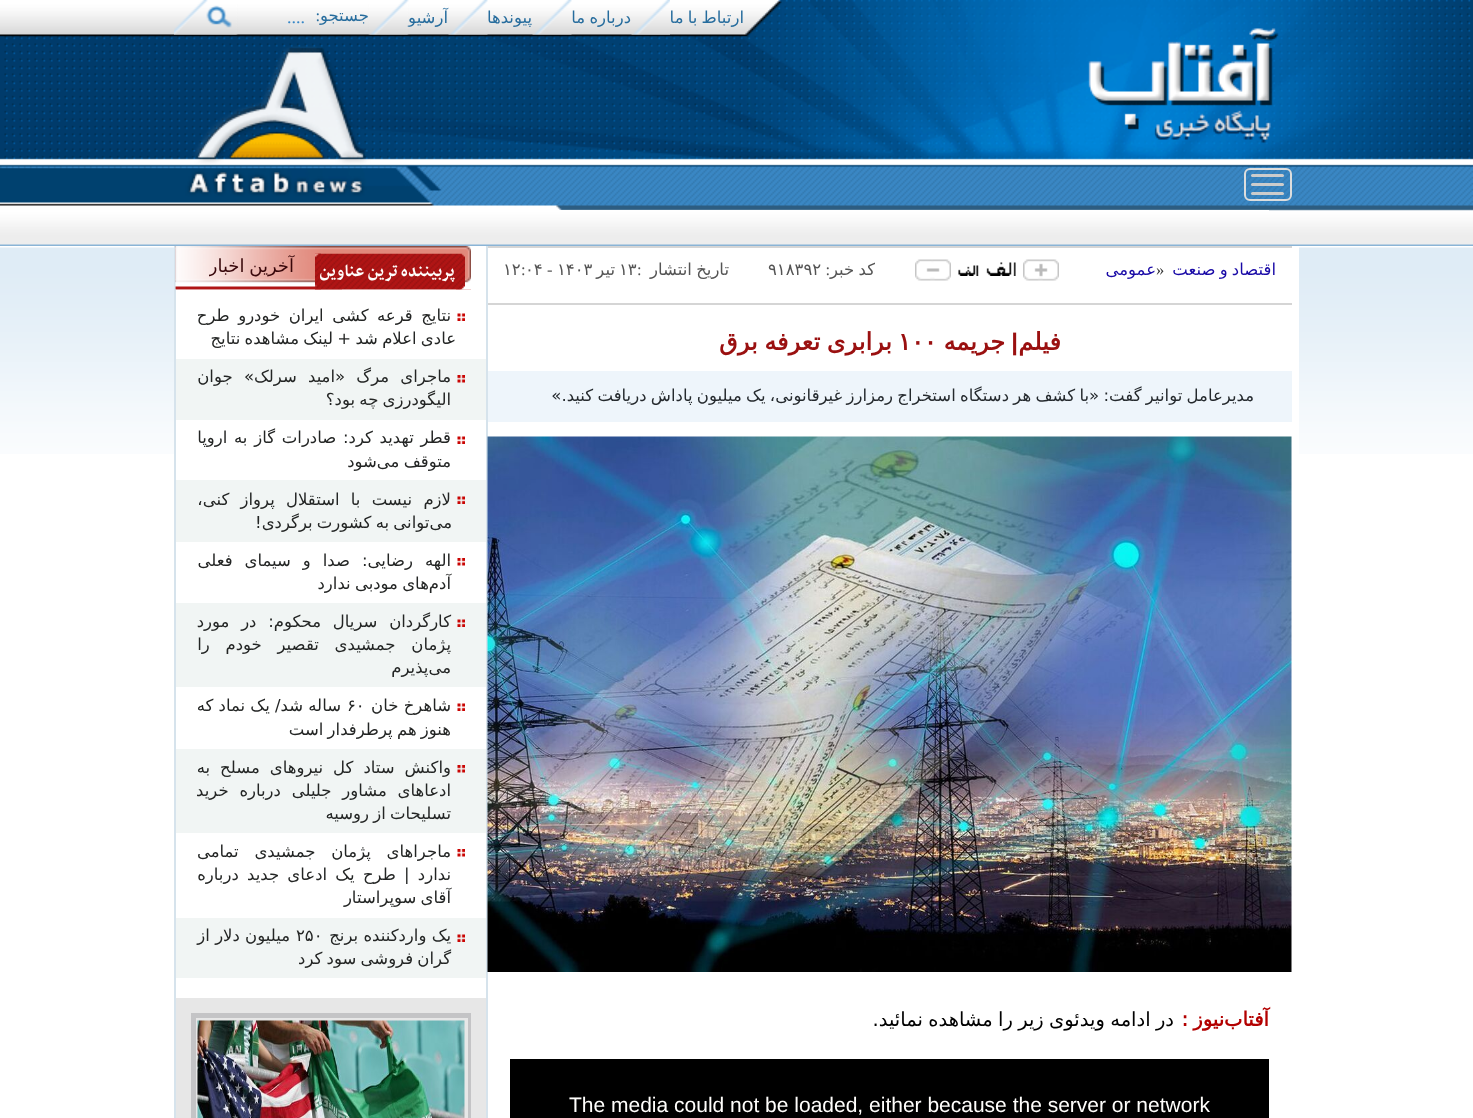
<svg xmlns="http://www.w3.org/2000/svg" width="1473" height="1118">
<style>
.a{font:16.5px DejaVu Sans;direction:rtl;fill:#266c9d}
.b{font:16.5px Liberation Serif;direction:rtl;fill:#266c9d}
.c{font:18px Liberation Serif;fill:#3586c7}
.d{font:16.5px DejaVu Sans;direction:rtl;fill:#1809a6}
.e{font:16.5px Liberation Serif;fill:#333}
.f{font:16.5px Liberation Serif;direction:rtl;fill:#545454}
.g{font:16.5px DejaVu Sans;direction:rtl;fill:#545454}
.h{font:16.5px DejaVu Sans;fill:#545454}
.i{font:16.5px Liberation Serif;fill:#545454}
.j{font:bold 24px DejaVu Sans;direction:rtl;fill:#9a1010}
.k{font:bold 24px Liberation Sans;direction:rtl;fill:#9a1010}
.l{font:bold 24px DejaVu Sans;fill:#9a1010}
.m{font:16.5px DejaVu Sans;direction:rtl;fill:#24292d}
.n{font:bold 19.5px DejaVu Sans;direction:rtl;fill:#b30000}
.o{font:19.5px DejaVu Sans;direction:rtl;fill:#010101}
.p{font:21px Liberation Sans;fill:#fffefc}
.q{font:bold 19.5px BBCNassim;direction:rtl;fill:#fffefc}
.r{font:18px DejaVu Sans;direction:rtl;fill:#38070a}
.s{font:16.5px DejaVu Sans;direction:rtl;fill:#232524}
.t{font:16.5px DejaVu Sans;fill:#232524}
</style>
<defs>
<clipPath id="clip1"><path d="M191 1013h280v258H191z"/></clipPath>
<clipPath id="clip2"><path d="M174 0h570v35H174z"/></clipPath>
<clipPath id="clip3"><path d="M768 260h107v21H768z"/></clipPath>
<clipPath id="clip4"><path d="M209 254h94v24H209z"/></clipPath>
</defs>
<rect width="100%" height="100%" fill="#fff"/>
<image href="1.png" x="0" y="0" width="1473" height="246"/>
<image href="2.png" x="631" y="0" width="39" height="35"/>
<image href="3.png" x="532" y="0" width="40" height="35"/>
<image href="6.png" x="174" y="0" width="64" height="35"/>
<rect fill="none" stroke="#ddd" stroke-width="2" x="1245" y="169" width="46" height="31" rx="5"/>
<rect fill="#ccc" x="1251" y="174" width="33" height="3" rx="1.5"/>
<rect fill="#ccc" x="1251" y="183" width="33" height="3" rx="1.5"/>
<rect fill="#ccc" x="1251" y="192" width="33" height="3" rx="1.5"/>
<path fill="#fff" d="M559 210h710v1H559z"/>
<image href="7.png" x="819" y="220" width="410" height="17"/>
<image href="8.png" x="0" y="247" width="1473" height="207"/>
<path fill="#fff" d="M176 247h1123v207H176z"/>
<path fill="#d6e3ec" d="M486 246h2v872H486z"/>
<path fill="#d5d5d5" d="M488 246h804v2H488z"/>
<path fill="#d5d5d5" d="M488 303h804v2H488z"/>
<image href="9.png" x="1023" y="259" width="36" height="22"/>
<image href="10.png" x="958" y="262" width="58" height="14"/>
<image href="11.png" x="915" y="259" width="36" height="22"/>
<path fill="#eef5fb" d="M488 371h804v51H488z"/>
<image href="12.png" x="487" y="436" width="805" height="536"/>
<path fill="#000" d="M510 1059h759v59H510z"/>
<path fill="#d6e3ec" d="M174 246h2v872H174z"/>
<image href="13.png" x="175" y="246" width="296" height="44"/>
<image href="14.png" x="315" y="253" width="150" height="37"/>
<image href="15.png" x="457" y="313" width="8" height="8"/>
<path fill="#f1f5f4" d="M176 359h310v61H176z"/>
<image href="16.png" x="457" y="375" width="8" height="8"/>
<image href="15.png" x="457" y="436" width="8" height="8"/>
<path fill="#f1f5f4" d="M176 480h310v62H176z"/>
<image href="17.png" x="457" y="496" width="8" height="8"/>
<image href="18.png" x="457" y="558" width="8" height="8"/>
<path fill="#f1f5f4" d="M176 603h310v84H176z"/>
<image href="17.png" x="457" y="619" width="8" height="8"/>
<image href="15.png" x="457" y="703" width="8" height="8"/>
<path fill="#f1f5f4" d="M176 749h310v84H176z"/>
<image href="16.png" x="457" y="765" width="8" height="8"/>
<image href="18.png" x="457" y="849" width="8" height="8"/>
<path fill="#f1f5f4" d="M176 918h310v60H176z"/>
<image href="17.png" x="457" y="934" width="8" height="8"/>
<path fill="#e7e7e7" d="M176 998h310v120H176z"/>
<g clip-path="url(#clip1)">
<path fill="none" stroke="#c4c4c6" stroke-width="5" d="M193.5 1015.5h277v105H193.5z"/>
</g>
<image href="19.png" x="197" y="1020" width="268" height="98"/>
<g clip-path="url(#clip2)">
<text class="a" x="744" y="23" word-spacing="-1">ارتباط با ما</text>
</g>
<text class="a" x="631" y="23" word-spacing="-1">درباره ما</text>
<text class="a" x="532" y="23">پیوندها</text>
<text class="a" x="448" y="23">آرشیو</text>
<image href="4.png" x="448" y="0" width="40" height="35"/>
<text class="a" x="369" y="21">جستجو</text>
<image href="5.png" x="368" y="0" width="41" height="35"/>
<text class="b" x="320" y="21">:</text>
<text class="c" x="287" y="23">....</text>
<text class="d" x="1276" y="275" word-spacing="-1">اقتصاد و صنعت</text>
<text class="e" x="1156" y="275">»</text>
<text class="d" x="1156" y="275">عمومی</text>
<text class="f" x="830" y="275">:</text>
<g clip-path="url(#clip3)">
<text class="g" x="875" y="275" word-spacing="-1">کد خبر</text>
</g>
<text class="h" x="768" y="275">۹۱۸۳۹۲</text>
<text class="g" x="729" y="275" word-spacing="-1">تاریخ انتشار</text>
<text class="i" x="637" y="275">:</text>
<text class="h" x="619" y="275">۱۳</text>
<text class="g" x="615" y="275">تير</text>
<text class="h" x="557" y="275">۱۴۰۳</text>
<text class="i" x="547" y="275">-</text>
<text class="h" x="525" y="275">۰۴</text>
<text class="i" x="521" y="275">:</text>
<text class="h" x="503" y="275">۱۲</text>
<text class="j" x="1061" y="350">فیلم</text>
<text class="k" x="1018" y="350">|</text>
<text class="j" x="1005" y="350">جریمه</text>
<text class="l" x="898" y="350">۱۰۰</text>
<text class="j" x="892" y="350" word-spacing="-1">برابری تعرفه برق</text>
<text class="m" x="1254" y="401" word-spacing="-0.9">مدیرعامل توانیر گفت: «با کشف هر دستگاه استخراج رمزارز غیرقانونی، یک میلیون پاداش دریافت کنید.»</text>
<text class="n" x="1269" y="1026" word-spacing="-1">آفتاب‌‌نیوز :</text>
<text class="o" x="1174" y="1026" word-spacing="-0.9">در ادامه ویدئوی زیر را مشاهده نمائید.</text>
<text class="p" x="569" y="1112">The media could not be loaded, either because the server or network</text>
<text class="q" x="455" y="276">پربیننده ترین عناوین</text>
<g clip-path="url(#clip4)">
<text class="r" x="294" y="272" word-spacing="-1">آخرین اخبار</text>
</g>
<text class="s" x="451" y="321" word-spacing="3.25">نتایج قرعه کشی ایران خودرو طرح</text>
<text class="s" x="456" y="344" word-spacing="-1">عادی اعلام شد + لینک مشاهده نتایج</text>
<text class="s" x="451" y="382" word-spacing="6">ماجرای مرگ «امید سرلک» جوان</text>
<text class="s" x="451" y="405" word-spacing="-1">الیگودرزی چه بود؟</text>
<text class="s" x="451" y="443" word-spacing="1.5">قطر تهدید کرد: صادرات گاز به اروپا</text>
<text class="s" x="451" y="467" word-spacing="-1">متوقف می‌شود</text>
<text class="s" x="451" y="505" word-spacing="6">لازم نیست با استقلال پرواز کنی،</text>
<text class="s" x="452" y="528" word-spacing="-1">می‌توانی به کشورت برگردی!</text>
<text class="s" x="451" y="566" word-spacing="6.75">الهه رضایی: صدا و سیمای فعلی</text>
<text class="s" x="451" y="589" word-spacing="-1">آدم‌های مودبی ندارد</text>
<text class="s" x="451" y="627" word-spacing="6.5">کارگردان سریال محکوم: در مورد</text>
<text class="s" x="451" y="650" word-spacing="10.5">پژمان جمشیدی تقصیر خودم را</text>
<text class="s" x="451" y="673">می‌پذیرم</text>
<text class="s" x="451" y="711">شاهرخ خان</text>
<text class="t" x="347" y="711">۶۰</text>
<text class="s" x="341" y="711">ساله شد/ یک نماد که</text>
<text class="s" x="451" y="735" word-spacing="-1">هنوز هم پرطرفدار است</text>
<text class="s" x="451" y="773" word-spacing="4.75">واکنش ستاد کل نیرو‌های مسلح به</text>
<text class="s" x="451" y="796" word-spacing="5.5">ادعا‌های مشاور جلیلی درباره خرید</text>
<text class="s" x="451" y="819" word-spacing="-1">تسلیحات از روسیه</text>
<text class="s" x="451" y="857" word-spacing="10.5">ماجرا‌های پژمان جمشیدی تمامی</text>
<text class="s" x="451" y="880" word-spacing="3">ندارد | طرح یک ادعای جدید درباره</text>
<text class="s" x="451" y="903" word-spacing="-1">آقای سوپراستار</text>
<text class="s" x="451" y="941">یک واردکننده برنج</text>
<text class="t" x="296" y="941">۲۵۰</text>
<text class="s" x="290" y="941">میلیون دلار از</text>
<text class="s" x="451" y="964" word-spacing="-1">گران فروشی سود کرد</text>
</svg>
